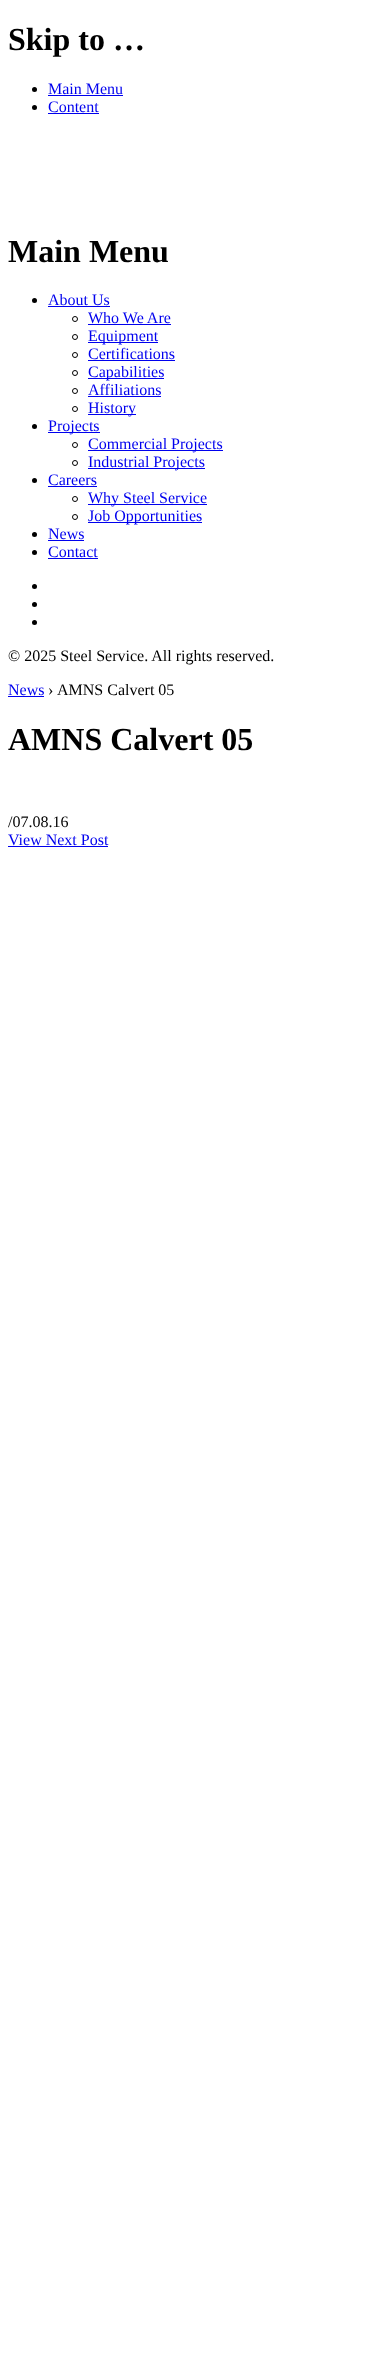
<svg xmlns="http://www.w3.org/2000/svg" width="374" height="2357">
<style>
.a{font:bold 32px Liberation Serif;fill:#000}
.b{font:16px Liberation Serif;fill:#00e}
.c{font:16px Liberation Serif;fill:#000}
</style>
<rect width="100%" height="100%" fill="#fff"/>
<circle fill="#000" cx="34.5" cy="89.5" r="2.5"/>
<path fill="#00e" d="M48 95h75v1H48z"/>
<circle fill="#000" cx="34.5" cy="107.5" r="2.5"/>
<path fill="#00e" d="M48 113h51v1H48z"/>
<circle fill="#000" cx="34.5" cy="300.5" r="2.5"/>
<path fill="#00e" d="M48 306h62v1H48z"/>
<circle fill="none" stroke="#000" cx="75" cy="319" r="2.5"/>
<path fill="#00e" d="M88 324h83v1H88z"/>
<circle fill="none" stroke="#000" cx="75" cy="337" r="2.5"/>
<path fill="#00e" d="M88 342h70v1H88z"/>
<circle fill="none" stroke="#000" cx="75" cy="355" r="2.5"/>
<path fill="#00e" d="M88 360h87v1H88z"/>
<circle fill="none" stroke="#000" cx="75" cy="373" r="2.5"/>
<path fill="#00e" d="M88 378h76v1H88z"/>
<circle fill="none" stroke="#000" cx="75" cy="391" r="2.5"/>
<path fill="#00e" d="M88 396h73v1H88z"/>
<circle fill="none" stroke="#000" cx="75" cy="409" r="2.5"/>
<path fill="#00e" d="M88 414h48v1H88z"/>
<circle fill="#000" cx="34.5" cy="426.5" r="2.5"/>
<path fill="#00e" d="M48 432h52v1H48z"/>
<circle fill="none" stroke="#000" cx="75" cy="445" r="2.5"/>
<path fill="#00e" d="M88 450h135v1H88z"/>
<circle fill="none" stroke="#000" cx="75" cy="463" r="2.5"/>
<path fill="#00e" d="M88 468h117v1H88z"/>
<circle fill="#000" cx="34.5" cy="480.5" r="2.5"/>
<path fill="#00e" d="M48 486h49v1H48z"/>
<circle fill="none" stroke="#000" cx="75" cy="499" r="2.5"/>
<path fill="#00e" d="M88 504h119v1H88z"/>
<circle fill="none" stroke="#000" cx="75" cy="517" r="2.5"/>
<path fill="#00e" d="M88 522h114v1H88z"/>
<circle fill="#000" cx="34.5" cy="534.5" r="2.5"/>
<path fill="#00e" d="M48 540h36v1H48z"/>
<circle fill="#000" cx="34.5" cy="552.5" r="2.5"/>
<path fill="#00e" d="M48 558h50v1H48z"/>
<circle fill="#000" cx="34.5" cy="586.5" r="2.5"/>
<circle fill="#000" cx="34.5" cy="604.5" r="2.5"/>
<circle fill="#000" cx="34.5" cy="622.5" r="2.5"/>
<path fill="#00e" d="M8 696h36v1H8z"/>
<path fill="#00e" d="M8 846h100v1H8z"/>
<text class="a" x="8" y="50">Skip to …</text>
<text class="b" x="48" y="94">Main Menu</text>
<text class="b" x="48" y="112">Content</text>
<text class="a" x="8" y="262">Main Menu</text>
<text class="b" x="48" y="305">About Us</text>
<text class="b" x="88" y="323">Who We Are</text>
<text class="b" x="88" y="341">Equipment</text>
<text class="b" x="88" y="359">Certifications</text>
<text class="b" x="88" y="377">Capabilities</text>
<text class="b" x="88" y="395">Affiliations</text>
<text class="b" x="88" y="413">History</text>
<text class="b" x="48" y="431">Projects</text>
<text class="b" x="88" y="449">Commercial Projects</text>
<text class="b" x="88" y="467">Industrial Projects</text>
<text class="b" x="48" y="485">Careers</text>
<text class="b" x="88" y="503">Why Steel Service</text>
<text class="b" x="88" y="521">Job Opportunities</text>
<text class="b" x="48" y="539">News</text>
<text class="b" x="48" y="557">Contact</text>
<text class="c" x="8" y="661">© 2025 Steel Service. All rights reserved.</text>
<text class="b" x="8" y="695">News</text>
<text class="c" x="48" y="695">›</text>
<text class="c" x="57" y="695">AMNS Calvert 05</text>
<text class="a" x="8" y="750">AMNS Calvert 05</text>
<text class="c" x="8" y="827">/07.08.16</text>
<text class="b" x="8" y="845">View Next Post</text>
</svg>
